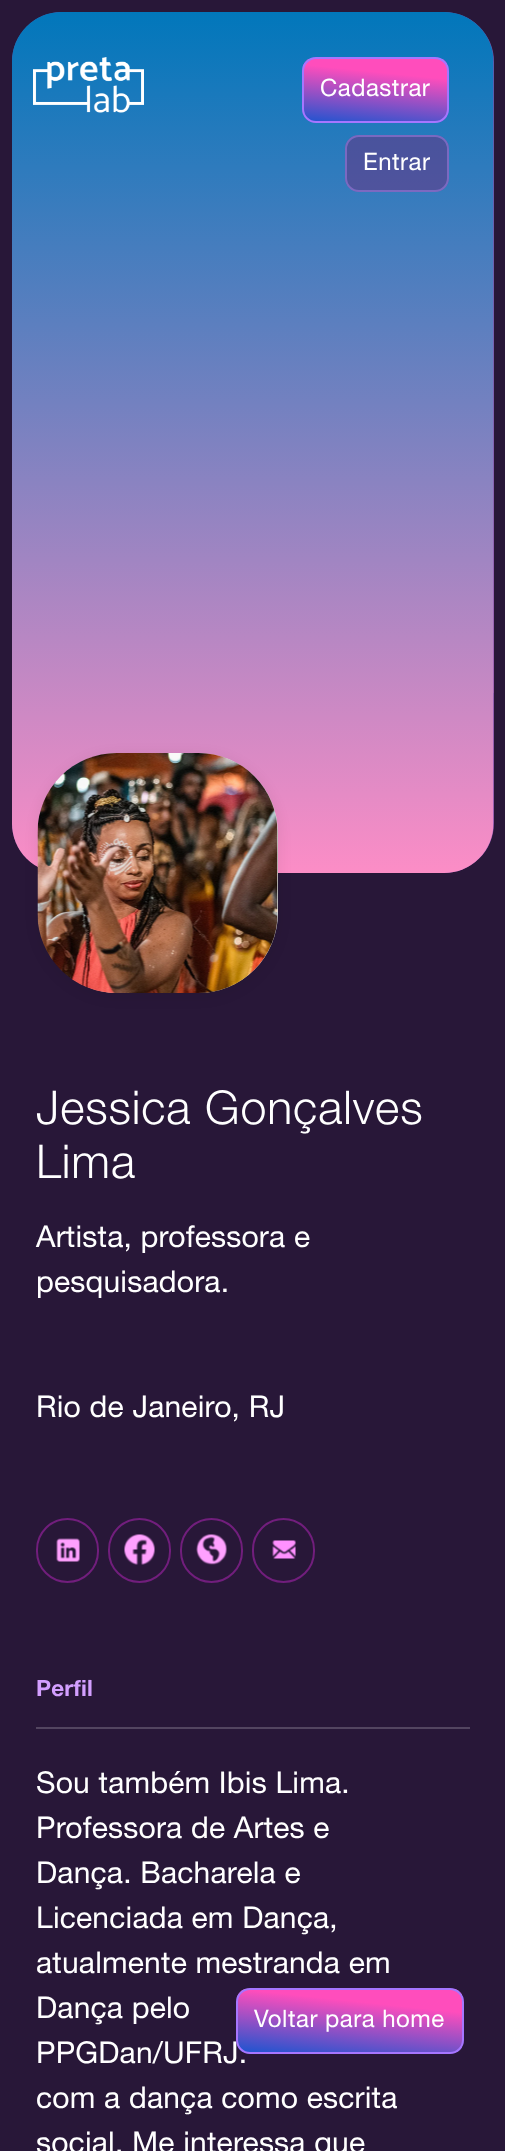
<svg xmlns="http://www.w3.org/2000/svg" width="505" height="2151">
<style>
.a{font:24px Helvetica Neue;letter-spacing:0.5px;fill:#fff}
.b{font:300 46.5px Helvetica Neue;letter-spacing:0.9px;fill:#fff}
.c{font:30px Helvetica Neue;letter-spacing:0.2px;fill:#fff}
.d{font:bold 22.5px Helvetica Neue;letter-spacing:0.2px;fill:#d39fff}
</style>
<defs>
<clipPath id="clip1"><rect x="302" y="57" width="147" height="66" rx="14"/></clipPath>
<linearGradient id="g1" gradientUnits="userSpaceOnUse" x1="379" y1="51" x2="371" y2="129"><stop offset="0.05" stop-color="#ff4dbc"/><stop offset="0.27" stop-color="#ff4dbc"/><stop offset="0.88" stop-color="#4453cc"/><stop offset="1" stop-color="#1f54cf"/></linearGradient>
<clipPath id="clip2"><rect x="236" y="1988" width="228" height="66" rx="14"/></clipPath>
<linearGradient id="g2" gradientUnits="userSpaceOnUse" x1="354" y1="1978" x2="345" y2="2063"><stop offset="0.05" stop-color="#ff4dbc"/><stop offset="0.27" stop-color="#ff4dbc"/><stop offset="0.88" stop-color="#4453cc"/><stop offset="1" stop-color="#1f54cf"/></linearGradient>
</defs>
<rect width="100%" height="100%" fill="#281738"/>
<rect fill="#8050a8" x="12" y="12" width="482" height="861" rx="50"/>
<image href="2.png" x="12" y="12" width="482" height="861"/>
<image href="1.png" x="33" y="57" width="111" height="56"/>
<g clip-path="url(#clip1)">
<path fill="url(#g1)" d="M303 59h144v63H303z"/>
</g>
<rect fill="none" stroke="#a676ff" stroke-width="2" x="303" y="58" width="145" height="64" rx="13"/>
<rect fill="#63388796" x="345" y="135" width="104" height="57" rx="14"/>
<rect fill="none" stroke="#cb90ff5e" stroke-width="2" x="346" y="136" width="102" height="55" rx="13"/>
<rect fill="#0000000d" filter="blur(6px)" x="35" y="753" width="246" height="246" rx="83"/>
<rect fill="#dadada" x="38" y="753" width="240" height="240" rx="80"/>
<image href="3.png" x="37" y="753" width="241" height="240"/>
<rect fill="none" stroke="#711e7c" stroke-width="2" x="37" y="1519" width="61" height="63" rx="30.5"/>
<image href="4.png" x="56" y="1538" width="24" height="24"/>
<rect fill="none" stroke="#711e7c" stroke-width="2" x="109" y="1519" width="61" height="63" rx="30.5"/>
<image href="5.png" x="124" y="1534" width="31" height="31"/>
<rect fill="none" stroke="#711e7c" stroke-width="2" x="181" y="1519" width="61" height="63" rx="30.5"/>
<image href="6.png" x="196" y="1534" width="31" height="31"/>
<rect fill="none" stroke="#711e7c" stroke-width="2" x="253" y="1519" width="61" height="63" rx="30.5"/>
<image href="7.png" x="272" y="1540" width="24" height="19"/>
<path fill="#534560" d="M36 1727h434v2H36z"/>
<text class="a" x="320" y="96">Cadastrar</text>
<text class="a" x="363" y="170">Entrar</text>
<text class="b" x="36" y="1124">Jessica Gonçalves</text>
<text class="b" x="36" y="1178">Lima</text>
<text class="c" x="36" y="1247">Artista, professora e</text>
<text class="c" x="36" y="1292">pesquisadora.</text>
<text class="c" x="36" y="1417">Rio de Janeiro, RJ</text>
<text class="d" x="36" y="1696">Perfil</text>
<text class="c" x="36" y="1793">Sou também Ibis Lima.</text>
<text class="c" x="36" y="1838">Professora de Artes e</text>
<text class="c" x="36" y="1883">Dança. Bacharela e</text>
<text class="c" x="36" y="1928">Licenciada em Dança,</text>
<text class="c" x="36" y="1973">atualmente mestranda em</text>
<text class="c" x="36" y="2018">Dança pelo</text>
<text class="c" x="36" y="2063">PPGDan/UFRJ.</text>
<text class="c" x="36" y="2108">com a dança como escrita</text>
<text class="c" x="36" y="2153">social. Me interessa que</text>
<g clip-path="url(#clip2)">
<path fill="url(#g2)" d="M237 1989h225v63H237z"/>
</g>
<rect fill="none" stroke="#a676ff" stroke-width="2" x="237" y="1989" width="226" height="64" rx="13"/>
<text class="a" x="254" y="2027">Voltar para home</text>
</svg>
